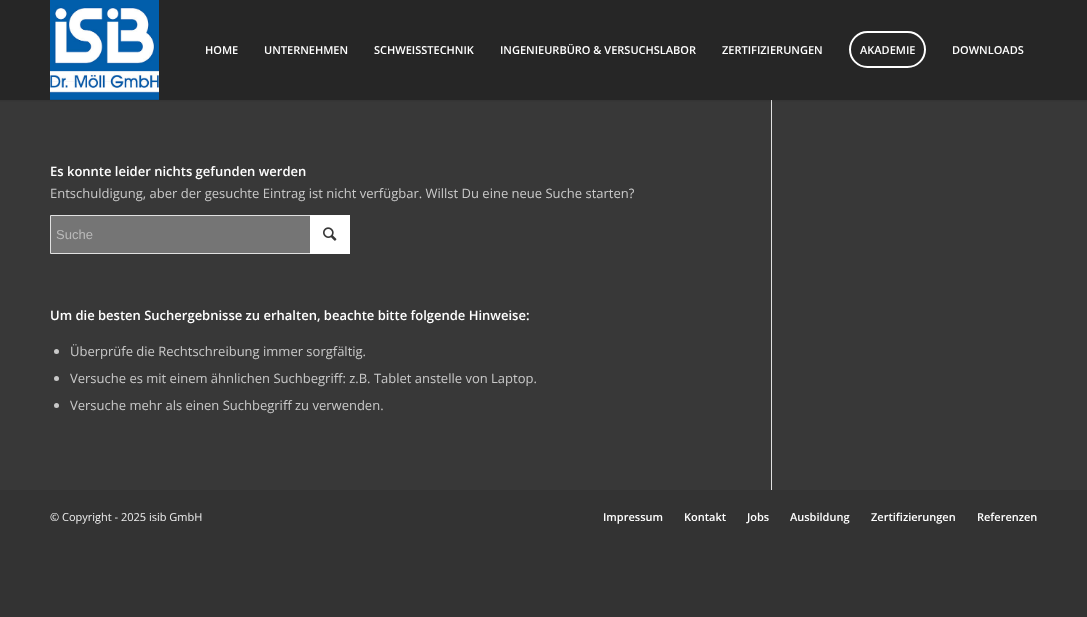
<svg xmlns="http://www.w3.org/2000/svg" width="1087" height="617">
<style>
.a{font:600 11px Open Sans;fill:#fff}
.b{font:600 13px Open Sans;fill:#fff}
.c{font:13px Open Sans;fill:#c9c9c9}
.d{font:13px Liberation Sans;fill:#bababa}
.e{font:11px Open Sans;fill:#eee}
</style>
<defs>
<clipPath id="clip1"><path d="M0 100h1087v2H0z"/></clipPath>
</defs>
<rect width="100%" height="100%" fill="#333"/>
<path fill="#262626" d="M0 0h1087v100H0z"/>
<path fill="#383838" d="M0 100h1087v390H0z"/>
<path fill="#e1e1e1" d="M771 100h1v390H771z"/>
<g clip-path="url(#clip1)">
<path fill="#0000001a" filter="blur(1px)" d="M-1 -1h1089v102H-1z"/>
</g>
<image href="1.png" x="50" y="0" width="109" height="100"/>
<rect fill="none" stroke="#fff" stroke-width="2" x="850" y="32" width="75" height="35" rx="17.5"/>
<path fill="#757575" d="M51 216h259v37H51z"/>
<path fill="none" stroke="#e1e1e1" d="M50.5 215.5h299v38H50.5z"/>
<path fill="#fff" d="M310 215h40v39H310z"/>
<image href="2.png" x="323" y="227" width="14" height="14"/>
<circle fill="#c9c9c9" cx="56.5" cy="351.5" r="2.5"/>
<circle fill="#c9c9c9" cx="56.5" cy="378.5" r="2.5"/>
<circle fill="#c9c9c9" cx="56.5" cy="405.5" r="2.5"/>
<text class="a" x="205" y="54">HOME</text>
<text class="a" x="264" y="54">UNTERNEHMEN</text>
<text class="a" x="374" y="54">SCHWEISSTECHNIK</text>
<text class="a" x="500" y="54">INGENIEURBÜRO &amp; VERSUCHSLABOR</text>
<text class="a" x="722" y="54">ZERTIFIZIERUNGEN</text>
<text class="a" x="860" y="54">AKADEMIE</text>
<text class="a" x="952" y="54">DOWNLOADS</text>
<text class="b" x="50" y="176">Es konnte leider nichts gefunden werden</text>
<text class="c" x="50" y="198">Entschuldigung, aber der gesuchte Eintrag ist nicht verfügbar. Willst Du eine neue Suche starten?</text>
<text class="d" x="56" y="239">Suche</text>
<text class="b" x="50" y="320">Um die besten Suchergebnisse zu erhalten, beachte bitte folgende Hinweise:</text>
<text class="c" x="70" y="356">Überprüfe die Rechtschreibung immer sorgfältig.</text>
<text class="c" x="70" y="383">Versuche es mit einem ähnlichen Suchbegriff: z.B. Tablet anstelle von Laptop.</text>
<text class="c" x="70" y="410">Versuche mehr als einen Suchbegriff zu verwenden.</text>
<text class="e" x="50" y="521">© Copyright - 2025 isib GmbH</text>
<text class="a" x="603" y="521">Impressum</text>
<text class="a" x="684" y="521">Kontakt</text>
<text class="a" x="747" y="521">Jobs</text>
<text class="a" x="790" y="521">Ausbildung</text>
<text class="a" x="871" y="521">Zertifizierungen</text>
<text class="a" x="977" y="521">Referenzen</text>
</svg>
